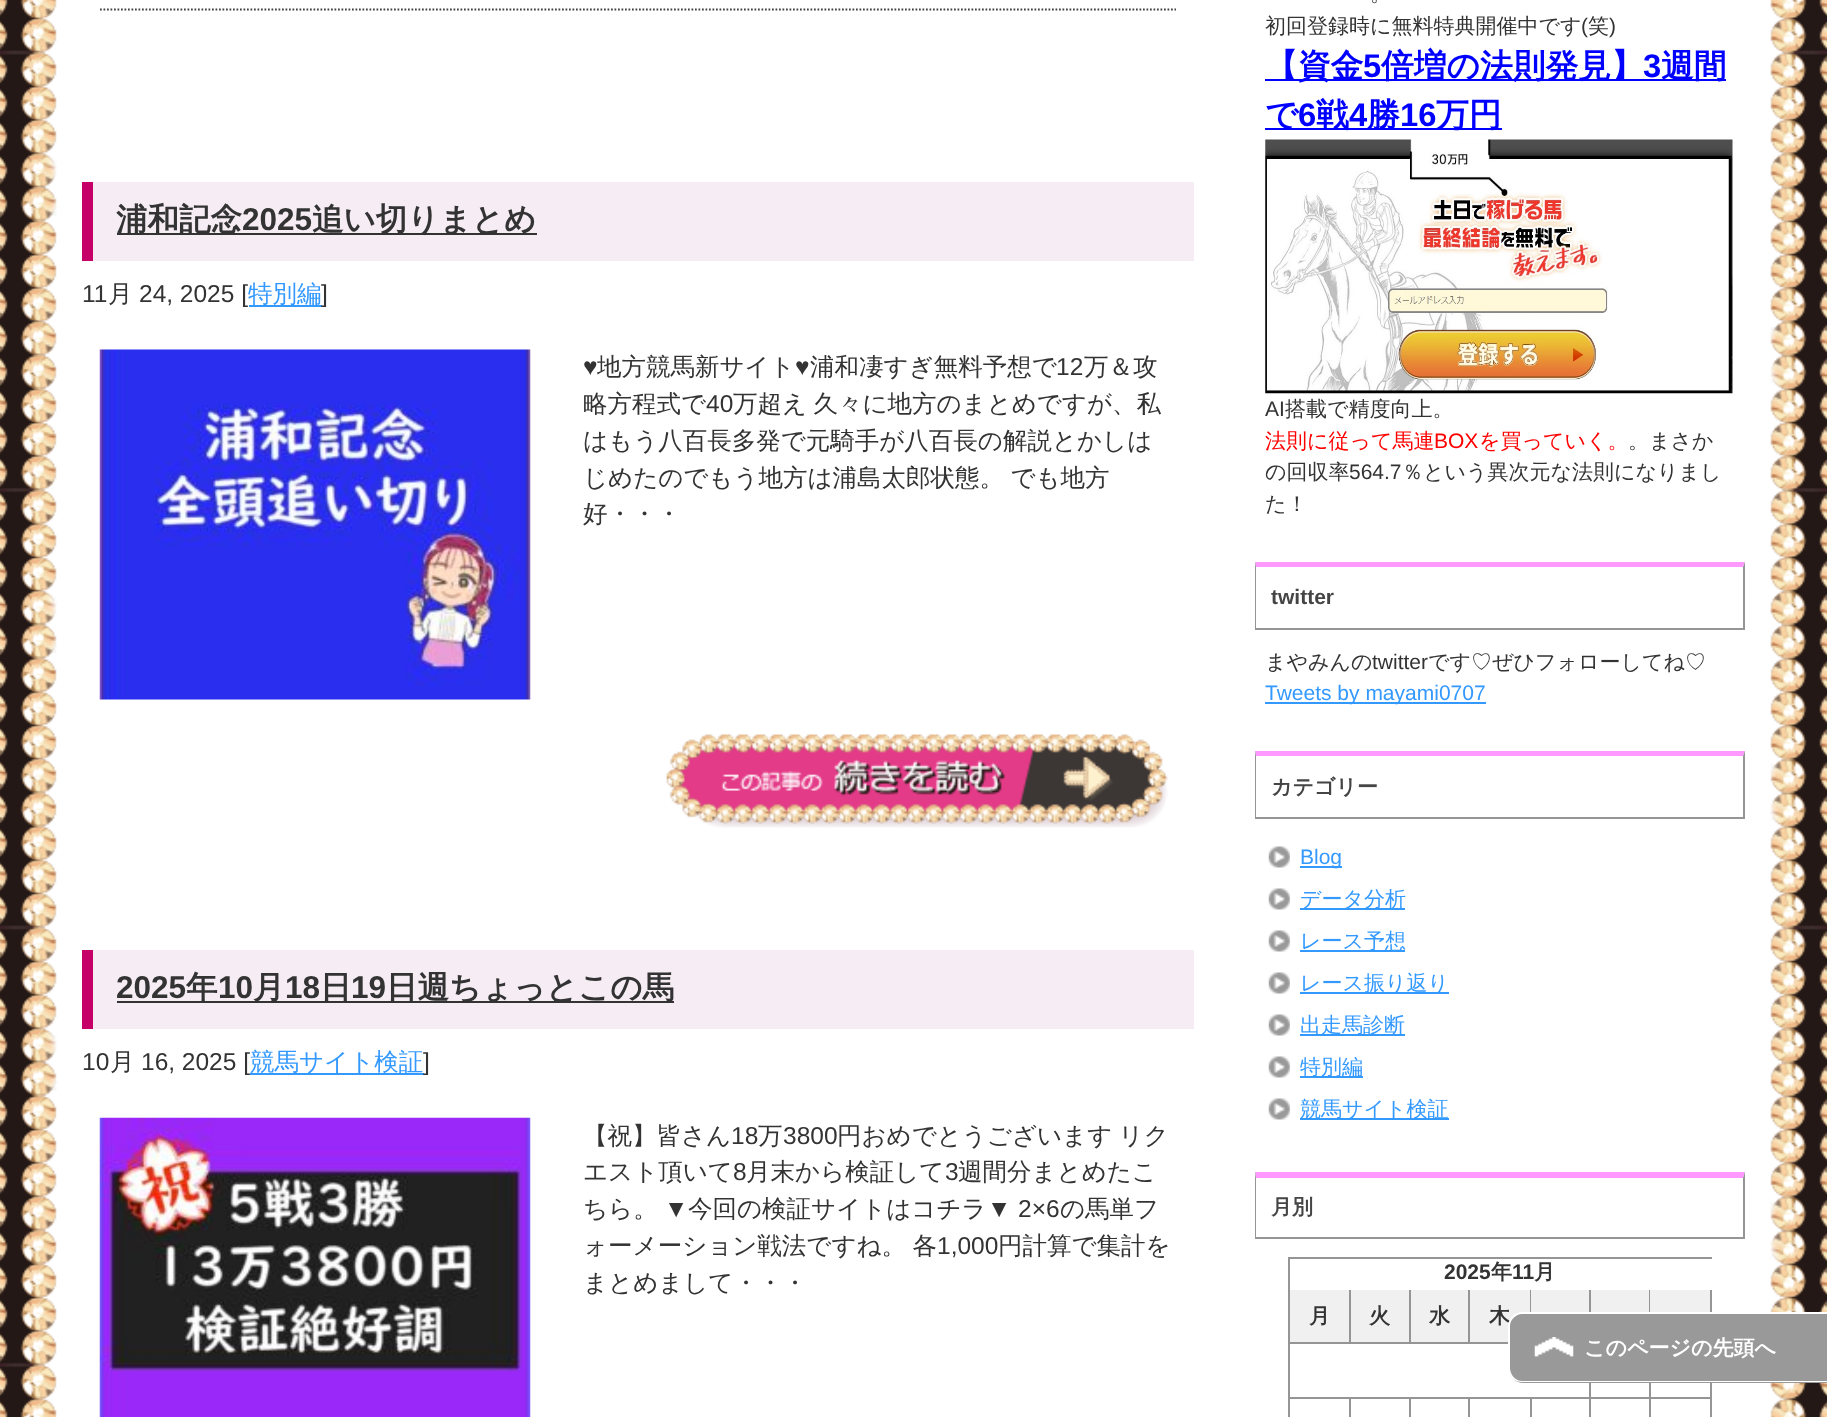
<svg xmlns="http://www.w3.org/2000/svg" width="1827" height="1417">
<style>
.a{font:bold 31.5px WenQuanYi Zen Hei;fill:#333}
.b{font:bold 31.5px Liberation Sans;fill:#333}
.c{font:24.5px Liberation Sans;fill:#333}
.d{font:500 24.5px WenQuanYi Zen Hei;fill:#333}
.e{font:500 24.5px WenQuanYi Zen Hei;fill:#39f}
.f{font:500 21px WenQuanYi Zen Hei;fill:#333}
.g{font:21px Liberation Sans;fill:#333}
.h{font:bold 32.75px WenQuanYi Zen Hei;fill:#00f}
.i{font:bold 32.75px Liberation Sans;fill:#00f}
.j{font:500 21px WenQuanYi Zen Hei;fill:#f00}
.k{font:21px Liberation Sans;fill:#f00}
.l{font:bold 21px Liberation Sans;fill:#454545}
.m{font:21px Liberation Sans;fill:#39f}
.n{font:bold 21px WenQuanYi Zen Hei;fill:#454545}
.o{font:500 21px WenQuanYi Zen Hei;fill:#39f}
.p{font:bold 21px Liberation Sans;fill:#333}
.q{font:bold 21px WenQuanYi Zen Hei;fill:#333}
.r{font:bold 21px WenQuanYi Zen Hei;fill:#fff}
</style>
<rect width="100%" height="100%" fill="#fff"/>
<image href="1.png" x="0" y="0" width="1827" height="1417"/>
<path fill="none" stroke="#414141" stroke-width="1.8" stroke-dasharray="1.75 1.75" d="M100 9.5h1076"/>
<path fill="#f5ecf4" d="M93 182h1101v79H93z"/>
<path fill="#c70067" d="M82 182h11v79H82z"/>
<path fill="#333" d="M117 233h420v2H117z"/>
<path fill="#39f" d="M249 305h73v2H249z"/>
<image href="2.png" x="99" y="349" width="432" height="351"/>
<image href="3.png" x="666" y="734" width="502" height="94"/>
<path fill="#f5ecf4" d="M93 950h1101v79H93z"/>
<path fill="#c70067" d="M82 950h11v79H82z"/>
<path fill="#333" d="M117 1001h557v2H117z"/>
<path fill="#39f" d="M250 1073h174v2H250z"/>
<image href="4.png" x="99" y="1117" width="432" height="300"/>
<path fill="#00f" d="M1265 79h461v2H1265z"/>
<path fill="#00f" d="M1265 128h237v2H1265z"/>
<image href="5.png" x="1265" y="139" width="468" height="255"/>
<path fill="#f9f" d="M1255 562h490l-2 5h-487z"/>
<path fill="#959595" d="M1745 562v68l-2-2v-61z"/>
<path fill="#959595" d="M1255 628h490v2H1255z"/>
<path fill="#959595" d="M1255 630v-68l1 5v61z"/>
<path fill="#39f" d="M1265 702h221v2H1265z"/>
<path fill="#f9f" d="M1255 751h490l-2 5h-487z"/>
<path fill="#959595" d="M1745 751v68l-2-2v-61z"/>
<path fill="#959595" d="M1255 817h490v2H1255z"/>
<path fill="#959595" d="M1255 819v-68l1 5v61z"/>
<image href="6.png" x="1268" y="846" width="22" height="22"/>
<path fill="#39f" d="M1300 866h42v2H1300z"/>
<image href="6.png" x="1268" y="888" width="22" height="22"/>
<path fill="#39f" d="M1300 908h105v2H1300z"/>
<image href="6.png" x="1268" y="930" width="22" height="22"/>
<path fill="#39f" d="M1300 950h105v2H1300z"/>
<image href="6.png" x="1268" y="972" width="22" height="22"/>
<path fill="#39f" d="M1300 992h149v2H1300z"/>
<image href="6.png" x="1268" y="1014" width="22" height="22"/>
<path fill="#39f" d="M1300 1034h105v2H1300z"/>
<image href="6.png" x="1268" y="1056" width="22" height="22"/>
<path fill="#39f" d="M1300 1076h63v2H1300z"/>
<image href="6.png" x="1268" y="1098" width="22" height="22"/>
<path fill="#39f" d="M1300 1118h149v2H1300z"/>
<path fill="#f9f" d="M1255 1172h490l-2 6h-487z"/>
<path fill="#959595" d="M1745 1172v67l-2-2v-59z"/>
<path fill="#959595" d="M1255 1237h490v2H1255z"/>
<path fill="#959595" d="M1255 1239v-67l1 6v59z"/>
<path fill="#959595" d="M1288 1257h424v2H1288z"/>
<path fill="#959595" d="M1288 1257h2v160H1288z"/>
<path fill="#f0f0f0" d="M1531 1290h58v22H1531z"/>
<path fill="#959595" d="M1589 1290h2v22H1589z"/>
<path fill="#f0f0f0" d="M1591 1290h58v22H1591z"/>
<path fill="#959595" d="M1649 1290h1v22H1649z"/>
<path fill="#f0f0f0" d="M1650 1290h60v22H1650z"/>
<path fill="#959595" d="M1710 1290h2v22H1710z"/>
<path fill="#f0f0f0" d="M1290 1290h59v52H1290z"/>
<path fill="#959595" d="M1349 1290h2v54H1349z"/>
<path fill="#959595" d="M1290 1342h61v2H1290z"/>
<path fill="#f0f0f0" d="M1351 1290h58v52H1351z"/>
<path fill="#959595" d="M1409 1290h2v54H1409z"/>
<path fill="#959595" d="M1351 1342h60v2H1351z"/>
<path fill="#f0f0f0" d="M1411 1290h57v52H1411z"/>
<path fill="#959595" d="M1468 1290h2v54H1468z"/>
<path fill="#959595" d="M1411 1342h97v2H1411z"/>
<path fill="#f0f0f0" d="M1470 1290h60v52H1470z"/>
<path fill="#959595" d="M1530 1290h1v22H1530z"/>
<path fill="#959595" d="M1589 1383h2v15H1589z"/>
<path fill="#959595" d="M1290 1397h301v2H1290z"/>
<path fill="#959595" d="M1649 1383h2v15H1649z"/>
<path fill="#959595" d="M1591 1397h59v2H1591z"/>
<path fill="#959595" d="M1710 1383h2v15H1710z"/>
<path fill="#959595" d="M1650 1397h62v2H1650z"/>
<path fill="#959595" d="M1349 1398h2v19H1349z"/>
<path fill="#959595" d="M1409 1398h2v19H1409z"/>
<path fill="#959595" d="M1468 1398h2v19H1468z"/>
<path fill="#959595" d="M1530 1398h2v19H1530z"/>
<path fill="#959595" d="M1589 1398h2v19H1589z"/>
<path fill="#959595" d="M1649 1398h2v19H1649z"/>
<path fill="#959595" d="M1710 1398h2v19H1710z"/>
<text class="a" x="116" y="230">浦和記念</text>
<text class="b" x="242" y="230">2025</text>
<text class="a" x="312" y="230">追い切りまとめ</text>
<text class="c" x="82" y="302">11</text>
<text class="d" x="108" y="302">月</text>
<text class="c" x="139" y="302">24, 2025 [</text>
<text class="e" x="248" y="302">特別編</text>
<text class="c" x="321" y="302">]</text>
<text class="c" x="583" y="375">♥</text>
<text class="d" x="597" y="375">地方競馬新サイト</text>
<text class="c" x="795" y="375">♥</text>
<text class="d" x="810" y="375">浦和凄すぎ無料予想で</text>
<text class="c" x="1056" y="375">12</text>
<text class="d" x="1084" y="375">万＆攻</text>
<text class="d" x="583" y="412">略方程式で</text>
<text class="c" x="706" y="412">40</text>
<text class="d" x="733" y="412" word-spacing="-1">万超え 久々に地方のまとめですが、私</text>
<text class="d" x="583" y="449">はもう八百長多発で元騎手が八百長の解説とかしは</text>
<text class="d" x="583" y="486" word-spacing="-1">じめたのでもう地方は浦島太郎状態。 でも地方</text>
<text class="d" x="583" y="522">好・・・</text>
<text class="b" x="116" y="998">2025</text>
<text class="a" x="186" y="998">年</text>
<text class="b" x="218" y="998">10</text>
<text class="a" x="253" y="998">月</text>
<text class="b" x="285" y="998">18</text>
<text class="a" x="320" y="998">日</text>
<text class="b" x="351" y="998">19</text>
<text class="a" x="386" y="998">日週ちょっとこの馬</text>
<text class="c" x="82" y="1070">10</text>
<text class="d" x="110" y="1070">月</text>
<text class="c" x="141" y="1070">16, 2025 [</text>
<text class="e" x="250" y="1070">競馬サイト検証</text>
<text class="c" x="423" y="1070">]</text>
<text class="d" x="583" y="1144">【祝】皆さん</text>
<text class="c" x="731" y="1144">18</text>
<text class="d" x="758" y="1144">万</text>
<text class="c" x="783" y="1144">3800</text>
<text class="d" x="837" y="1144" word-spacing="-1">円おめでとうございます リク</text>
<text class="d" x="583" y="1180">エスト頂いて</text>
<text class="c" x="733" y="1180">8</text>
<text class="d" x="746" y="1180">月末から検証して</text>
<text class="c" x="945" y="1180">3</text>
<text class="d" x="958" y="1180">週間分まとめたこ</text>
<text class="d" x="583" y="1217">ちら。</text>
<text class="c" x="664" y="1217">▼</text>
<text class="d" x="688" y="1217">今回の検証サイトはコチラ</text>
<text class="c" x="987" y="1217">▼ 2×6</text>
<text class="d" x="1060" y="1217">の馬単フ</text>
<text class="d" x="583" y="1254" word-spacing="-1">ォーメーション戦法ですね。 各</text>
<text class="c" x="937" y="1254">1,000</text>
<text class="d" x="998" y="1254">円計算で集計を</text>
<text class="d" x="583" y="1291">まとめまして・・・</text>
<text class="f" x="1370" y="1">。</text>
<text class="f" x="1265" y="33">初回登録時に無料特典開催中です</text>
<text class="g" x="1581" y="33">(</text>
<text class="f" x="1588" y="33">笑</text>
<text class="g" x="1609" y="33">)</text>
<text class="h" x="1265" y="77">【資金</text>
<text class="i" x="1363" y="77">5</text>
<text class="h" x="1381" y="77">倍増の法則発見】</text>
<text class="i" x="1643" y="77">3</text>
<text class="h" x="1661" y="77">週間</text>
<text class="h" x="1265" y="126">で</text>
<text class="i" x="1298" y="126">6</text>
<text class="h" x="1316" y="126">戦</text>
<text class="i" x="1349" y="126">4</text>
<text class="h" x="1367" y="126">勝</text>
<text class="i" x="1400" y="126">16</text>
<text class="h" x="1436" y="126">万円</text>
<text class="g" x="1265" y="416">AI</text>
<text class="f" x="1285" y="416">搭載で精度向上。</text>
<text class="j" x="1265" y="448">法則に従って馬連</text>
<text class="k" x="1434" y="448">BOX</text>
<text class="j" x="1479" y="448">を買っていく。</text>
<text class="f" x="1628" y="448">。まさか</text>
<text class="f" x="1265" y="479">の回収率</text>
<text class="g" x="1349" y="479">564.7</text>
<text class="f" x="1402" y="479">％という異次元な法則になりまし</text>
<text class="f" x="1265" y="511">た！</text>
<text class="l" x="1271" y="604">twitter</text>
<text class="f" x="1265" y="669">まやみんの</text>
<text class="g" x="1372" y="669">twitter</text>
<text class="f" x="1428" y="669">です♡ぜひフォローしてね♡</text>
<text class="m" x="1265" y="700">Tweets by mayami0707</text>
<text class="n" x="1271" y="794">カテゴリー</text>
<text class="m" x="1300" y="864">Blog</text>
<text class="o" x="1300" y="906">データ分析</text>
<text class="o" x="1300" y="948">レース予想</text>
<text class="o" x="1300" y="990">レース振り返り</text>
<text class="o" x="1300" y="1032">出走馬診断</text>
<text class="o" x="1300" y="1074">特別編</text>
<text class="o" x="1300" y="1116">競馬サイト検証</text>
<text class="n" x="1271" y="1214">月別</text>
<text class="p" x="1444" y="1279">2025</text>
<text class="q" x="1491" y="1279">年</text>
<text class="p" x="1512" y="1279">11</text>
<text class="q" x="1534" y="1279">月</text>
<text class="q" x="1309" y="1323">月</text>
<text class="q" x="1369" y="1323">火</text>
<text class="q" x="1429" y="1323">水</text>
<text class="q" x="1489" y="1323">木</text>
<path fill="#999" d="M1523 1313h304v70h-304c-7.5 0-14-6.5-14-14v-42c0-7.5 6.5-14 14-14z"/>
<image href="7.png" x="1534" y="1337" width="40" height="20"/>
<path fill="#fff" fill-rule="evenodd" d="M1522 1312h305v70h-305c-7 0-14-6-14-14v-42c0-7 7-14 14-14zm0 2h305v67h-305c-6 0-12-6-12-13v-42c0-6 6-12 12-12z"/>
<text class="r" x="1584" y="1355">このページの先頭へ</text>
</svg>
